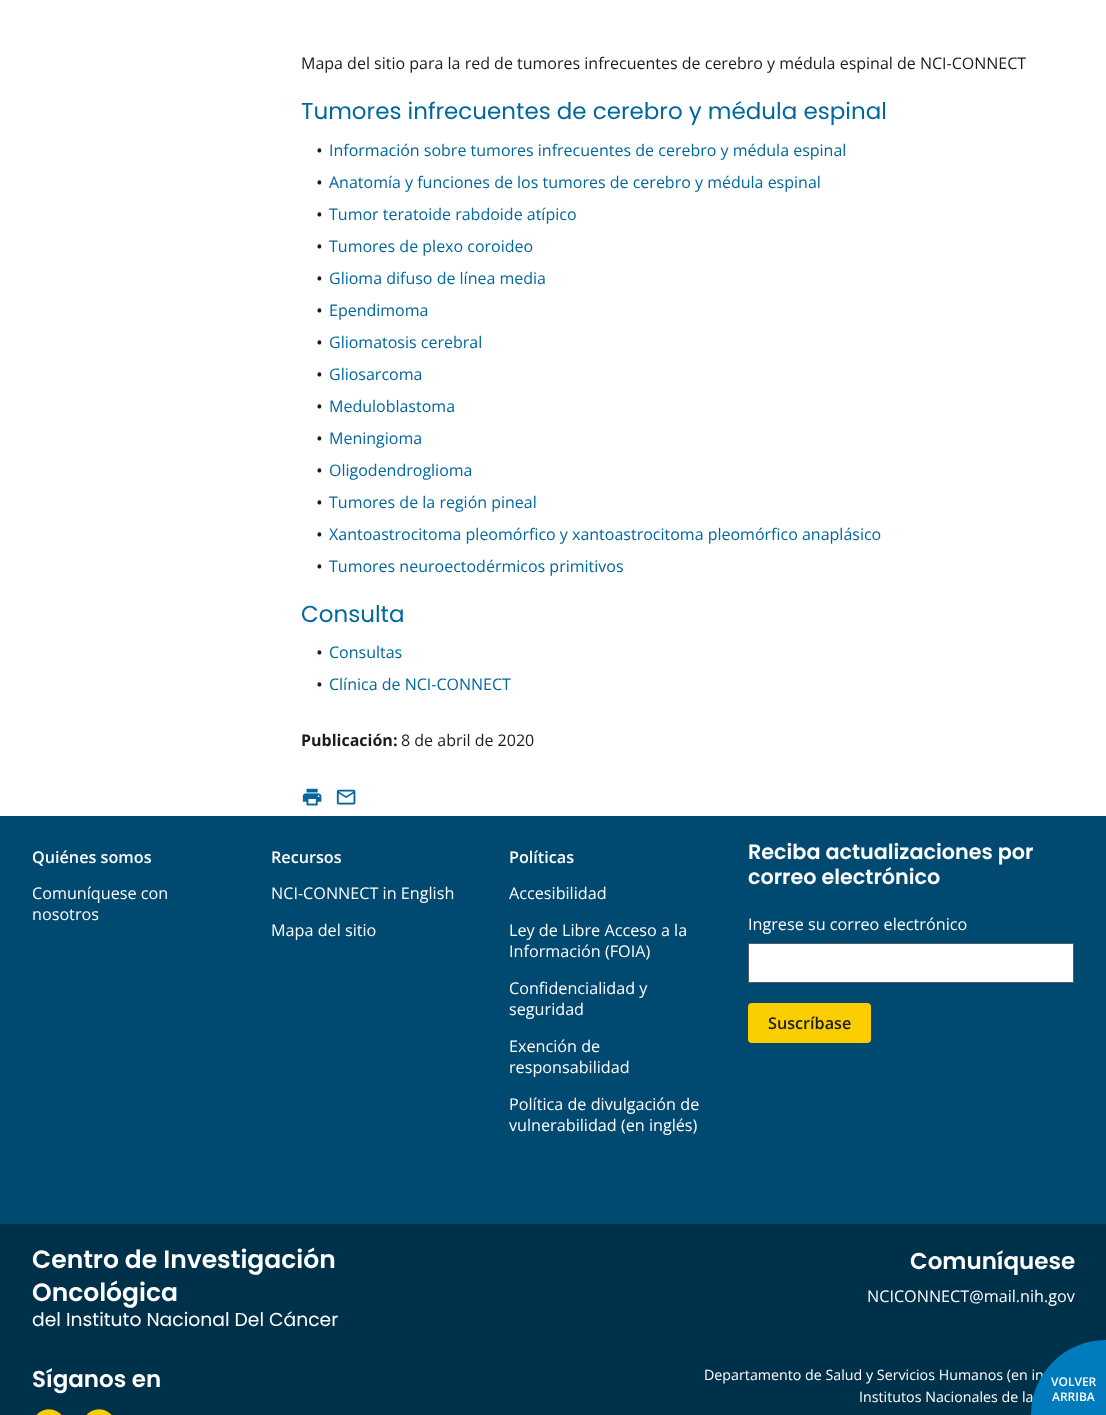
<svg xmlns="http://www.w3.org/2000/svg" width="1106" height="1415">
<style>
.a{font:16px Open Sans;fill:#1b1b1b}
.b{font:23px Poppins;fill:#01679d}
.c{font:18px Open Sans;fill:#1b1b1b}
.d{font:16px Open Sans;fill:#01679d}
.e{font:bold 16px Open Sans;fill:#1b1b1b}
.f{font:600 16.2px Open Sans;fill:#fff}
.g{font:16.2px Open Sans;fill:#fff}
.h{font:600 20.75px Poppins;fill:#fff}
.i{font:600 16.2px Open Sans;fill:#1b1b1b}
.j{font:600 25px Poppins;fill:#fff}
.k{font:18.75px Poppins;fill:#fff}
.l{font:600 23px Poppins;fill:#fff}
.m{font:14.25px Open Sans;fill:#fff}
.n{font:600 12px Open Sans;fill:#fff}
</style>
<rect width="100%" height="100%" fill="#fff"/>
<image href="1.png" x="302" y="788" width="20" height="18"/>
<image href="2.png" x="336" y="789" width="20" height="16"/>
<path fill="#004971" d="M0 816h1106v408H0z"/>
<path fill="#fff" stroke="#565c65" d="M748.5 943.5h325v39H748.5z"/>
<rect fill="#face00" x="748" y="1003" width="123" height="40" rx="4"/>
<path fill="#00314b" d="M0 1224h1106v191H0z"/>
<image href="3.png" x="36" y="1409" width="26" height="6"/>
<image href="4.png" x="86" y="1409" width="26" height="6"/>
<text class="a" x="301" y="69">Mapa del sitio para la red de tumores infrecuentes de cerebro y médula espinal de NCI-CONNECT</text>
<text class="b" x="301" y="119">Tumores infrecuentes de cerebro y médula espinal</text>
<text class="c" x="316" y="157">•</text>
<text class="d" x="329" y="156">Información sobre tumores infrecuentes de cerebro y médula espinal</text>
<text class="c" x="316" y="189">•</text>
<text class="d" x="329" y="188">Anatomía y funciones de los tumores de cerebro y médula espinal</text>
<text class="c" x="316" y="221">•</text>
<text class="d" x="329" y="220">Tumor teratoide rabdoide atípico</text>
<text class="c" x="316" y="253">•</text>
<text class="d" x="329" y="252">Tumores de plexo coroideo</text>
<text class="c" x="316" y="285">•</text>
<text class="d" x="329" y="284">Glioma difuso de línea media</text>
<text class="c" x="316" y="317">•</text>
<text class="d" x="329" y="316">Ependimoma</text>
<text class="c" x="316" y="349">•</text>
<text class="d" x="329" y="348">Gliomatosis cerebral</text>
<text class="c" x="316" y="381">•</text>
<text class="d" x="329" y="380">Gliosarcoma</text>
<text class="c" x="316" y="413">•</text>
<text class="d" x="329" y="412">Meduloblastoma</text>
<text class="c" x="316" y="445">•</text>
<text class="d" x="329" y="444">Meningioma</text>
<text class="c" x="316" y="477">•</text>
<text class="d" x="329" y="476">Oligodendroglioma</text>
<text class="c" x="316" y="509">•</text>
<text class="d" x="329" y="508">Tumores de la región pineal</text>
<text class="c" x="316" y="541">•</text>
<text class="d" x="329" y="540">Xantoastrocitoma pleomórfico y xantoastrocitoma pleomórfico anaplásico</text>
<text class="c" x="316" y="573">•</text>
<text class="d" x="329" y="572">Tumores neuroectodérmicos primitivos</text>
<text class="b" x="301" y="622">Consulta</text>
<text class="c" x="316" y="659">•</text>
<text class="d" x="329" y="658">Consultas</text>
<text class="c" x="316" y="691">•</text>
<text class="d" x="329" y="690">Clínica de NCI-CONNECT</text>
<text class="e" x="301" y="746">Publicación:</text>
<text class="a" x="401" y="746">8 de abril de 2020</text>
<text class="f" x="32" y="863">Quiénes somos</text>
<text class="g" x="32" y="899">Comuníquese con</text>
<text class="g" x="32" y="920">nosotros</text>
<text class="f" x="271" y="863">Recursos</text>
<text class="g" x="271" y="899">NCI-CONNECT in English</text>
<text class="g" x="271" y="936">Mapa del sitio</text>
<text class="f" x="509" y="863">Políticas</text>
<text class="g" x="509" y="899">Accesibilidad</text>
<text class="g" x="509" y="936">Ley de Libre Acceso a la</text>
<text class="g" x="509" y="957">Información (FOIA)</text>
<text class="g" x="509" y="994">Confidencialidad y</text>
<text class="g" x="509" y="1015">seguridad</text>
<text class="g" x="509" y="1052">Exención de</text>
<text class="g" x="509" y="1073">responsabilidad</text>
<text class="g" x="509" y="1110">Política de divulgación de</text>
<text class="g" x="509" y="1131">vulnerabilidad (en inglés)</text>
<text class="h" x="748" y="859">Reciba actualizaciones por</text>
<text class="h" x="748" y="884">correo electrónico</text>
<text class="g" x="748" y="930">Ingrese su correo electrónico</text>
<text class="i" x="768" y="1029">Suscríbase</text>
<text class="j" x="32" y="1268">Centro de Investigación</text>
<text class="j" x="32" y="1301">Oncológica</text>
<text class="k" x="32" y="1326">del Instituto Nacional Del Cáncer</text>
<text class="l" x="910" y="1269">Comuníquese</text>
<text class="g" x="867" y="1302">NCICONNECT@mail.nih.gov</text>
<text class="l" x="32" y="1387">Síganos en</text>
<text class="m" x="704" y="1380">Departamento de Salud y Servicios Humanos (en in</text>
<text class="m" x="859" y="1402">Institutos Nacionales de la</text>
<path fill="#007bbd" d="M1106 1340v75h-75c0-41.5 33.5-75 75-75z"/>
<text class="n" x="1051" y="1386">VOLVER</text>
<text class="n" x="1052" y="1401">ARRIBA</text>
</svg>
